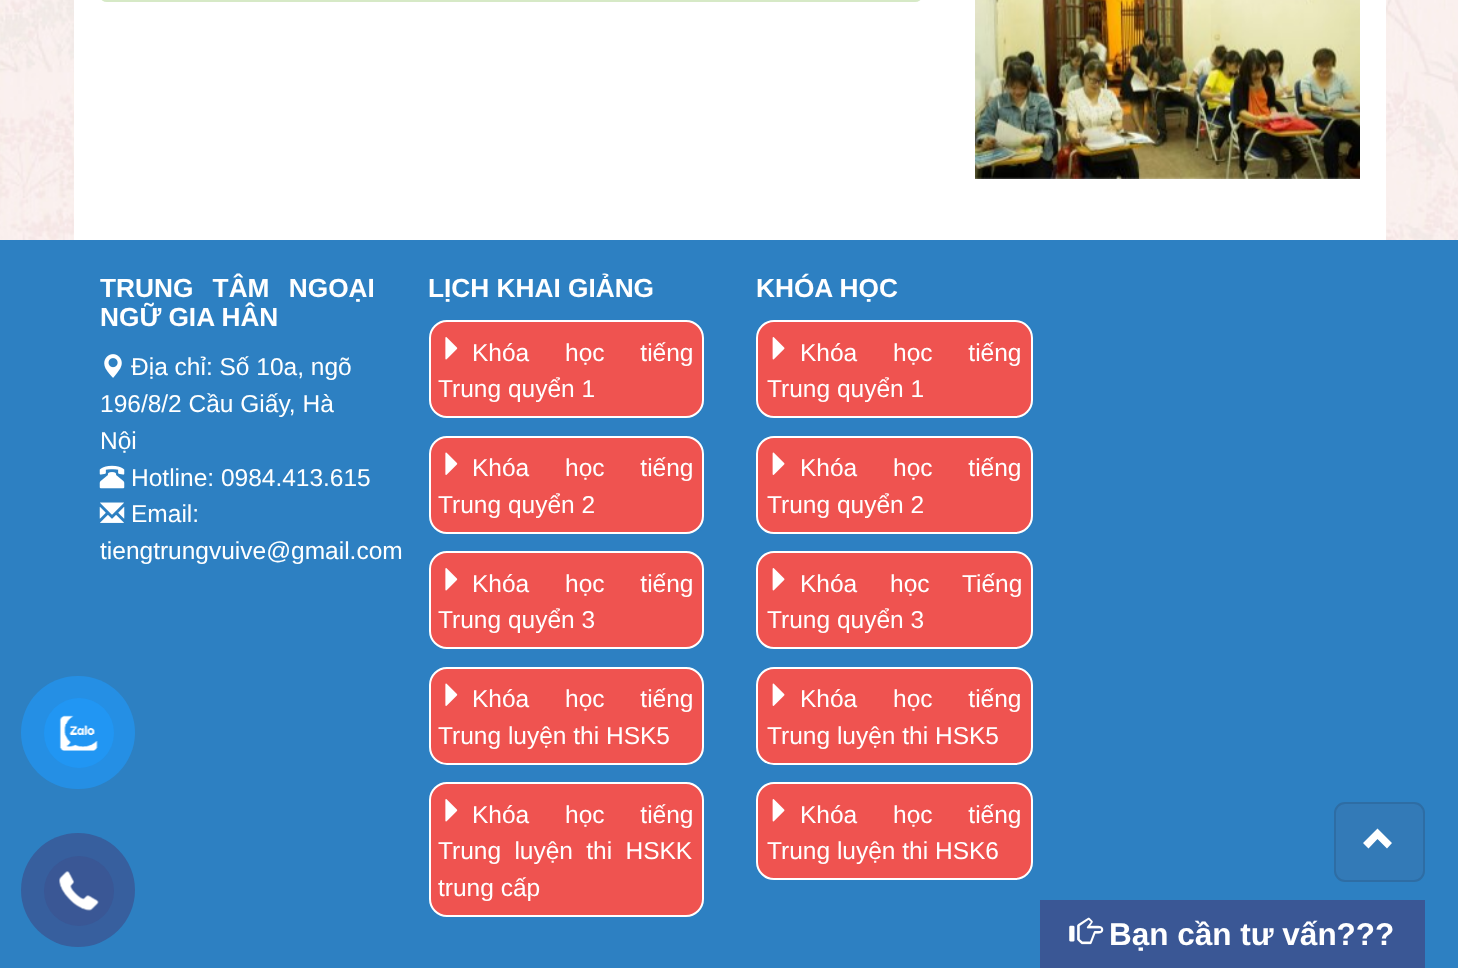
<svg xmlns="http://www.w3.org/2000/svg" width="1458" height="968">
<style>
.a{font:bold 26.25px Liberation Sans;fill:#fff}
.b{font:24.5px Liberation Sans;fill:#fff}
.c{font:bold 31.5px Liberation Sans;fill:#fff}
</style>
<rect width="100%" height="100%" fill="#fff"/>
<image href="1.png" x="0" y="0" width="1458" height="240"/>
<path fill="#fff" d="M74 0h1312v240H74z"/>
<rect fill="none" stroke="#d6e9c6" stroke-width="2" x="101" y="-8" width="820" height="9" rx="6"/>
<image href="2.png" x="975" y="0" width="385" height="179"/>
<path fill="#2d80c2" d="M0 240h1458v728H0z"/>
<rect fill="#258fe4" x="21" y="676" width="114" height="113" rx="56.5"/>
<circle fill="#2196f3" cx="79" cy="733" r="35"/>
<image href="3.png" x="59" y="715" width="39" height="36"/>
<circle fill="#375f9e" cx="78" cy="890" r="57"/>
<circle fill="#3a5795" cx="79" cy="891" r="35"/>
<image href="4.png" x="59" y="871" width="40" height="40"/>
<image href="5.png" x="104" y="354" width="18" height="24"/>
<image href="6.png" x="99" y="465" width="26" height="24"/>
<image href="7.png" x="99" y="502" width="26" height="21"/>
<rect fill="#ef5350" stroke="#fff" stroke-width="2" x="430" y="321" width="273" height="96" rx="17"/>
<image href="8.png" x="445" y="337" width="13" height="23"/>
<rect fill="#ef5350" stroke="#fff" stroke-width="2" x="430" y="437" width="273" height="96" rx="17"/>
<image href="9.png" x="445" y="452" width="13" height="23"/>
<rect fill="#ef5350" stroke="#fff" stroke-width="2" x="430" y="552" width="273" height="96" rx="17"/>
<image href="8.png" x="445" y="568" width="13" height="23"/>
<rect fill="#ef5350" stroke="#fff" stroke-width="2" x="430" y="668" width="273" height="96" rx="17"/>
<image href="9.png" x="445" y="683" width="13" height="23"/>
<rect fill="#ef5350" stroke="#fff" stroke-width="2" x="430" y="783" width="273" height="133" rx="17"/>
<image href="8.png" x="445" y="799" width="13" height="23"/>
<rect fill="#ef5350" stroke="#fff" stroke-width="2" x="757" y="321" width="275" height="96" rx="17"/>
<image href="10.png" x="772" y="337" width="13" height="23"/>
<rect fill="#ef5350" stroke="#fff" stroke-width="2" x="757" y="437" width="275" height="96" rx="17"/>
<image href="11.png" x="772" y="452" width="13" height="23"/>
<rect fill="#ef5350" stroke="#fff" stroke-width="2" x="757" y="552" width="275" height="96" rx="17"/>
<image href="10.png" x="772" y="568" width="13" height="23"/>
<rect fill="#ef5350" stroke="#fff" stroke-width="2" x="757" y="668" width="275" height="96" rx="17"/>
<image href="11.png" x="772" y="683" width="13" height="23"/>
<rect fill="#ef5350" stroke="#fff" stroke-width="2" x="757" y="783" width="275" height="96" rx="17"/>
<image href="10.png" x="772" y="799" width="13" height="23"/>
<rect fill="#337ab7" stroke="#2e6da4" stroke-width="2" x="1335" y="803" width="89" height="78" rx="10"/>
<path fill="#fff" d="M1392 843l-5 5.5l-9.5-9.5l-9 9.5l-5.5-5.5l14.5-14.5z"/>
<path fill="#3a5795" d="M1040 900h385v68H1040z"/>
<image href="12.png" x="1069" y="917" width="35" height="28"/>
<text class="a" x="100" y="297" word-spacing="12">TRUNG TÂM NGOẠI</text>
<text class="a" x="100" y="326">NGỮ GIA HÂN</text>
<text class="b" x="131" y="375">Địa chỉ: Số 10a, ngõ</text>
<text class="b" x="100" y="412">196/8/2 Cầu Giấy, Hà</text>
<text class="b" x="100" y="449">Nội</text>
<text class="b" x="131" y="486">Hotline: 0984.413.615</text>
<text class="b" x="131" y="522">Email:</text>
<text class="b" x="100" y="559">tiengtrungvuive@gmail.com</text>
<text class="a" x="428" y="297">LỊCH KHAI GIẢNG</text>
<text class="b" x="472" y="361" word-spacing="29">Khóa học tiếng</text>
<text class="b" x="438" y="397">Trung quyển 1</text>
<text class="b" x="472" y="476" word-spacing="29">Khóa học tiếng</text>
<text class="b" x="438" y="513">Trung quyển 2</text>
<text class="b" x="472" y="592" word-spacing="29">Khóa học tiếng</text>
<text class="b" x="438" y="628">Trung quyển 3</text>
<text class="b" x="472" y="707" word-spacing="29">Khóa học tiếng</text>
<text class="b" x="438" y="744">Trung luyện thi HSK5</text>
<text class="b" x="472" y="823" word-spacing="29">Khóa học tiếng</text>
<text class="b" x="438" y="859" word-spacing="6.5">Trung luyện thi HSKK</text>
<text class="b" x="438" y="896">trung cấp</text>
<text class="a" x="756" y="297">KHÓA HỌC</text>
<text class="b" x="800" y="361" word-spacing="29">Khóa học tiếng</text>
<text class="b" x="767" y="397">Trung quyển 1</text>
<text class="b" x="800" y="476" word-spacing="29">Khóa học tiếng</text>
<text class="b" x="767" y="513">Trung quyển 2</text>
<text class="b" x="800" y="592" word-spacing="26">Khóa học Tiếng</text>
<text class="b" x="767" y="628">Trung quyển 3</text>
<text class="b" x="800" y="707" word-spacing="29">Khóa học tiếng</text>
<text class="b" x="767" y="744">Trung luyện thi HSK5</text>
<text class="b" x="800" y="823" word-spacing="29">Khóa học tiếng</text>
<text class="b" x="767" y="859">Trung luyện thi HSK6</text>
<text class="c" x="1109" y="945">Bạn cần tư vấn???</text>
</svg>
